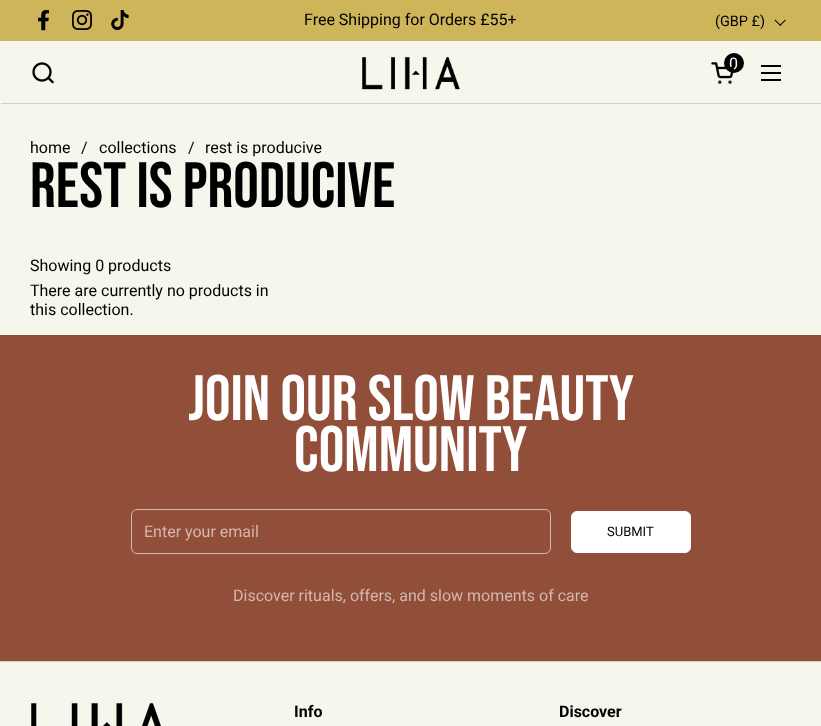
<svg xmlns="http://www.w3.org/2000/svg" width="821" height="726">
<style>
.a{font:16px Roboto;fill:#000}
.b{font:14.5px Roboto;fill:#000}
.c{font:16px Roboto;fill:#fff}
.d{font:64px Bebas Neue;fill:#000}
.e{font:64px Bebas Neue;fill:#fff}
.f{font:16px Roboto;fill:#d3b8b0}
.g{font:13px Roboto;fill:#000}
.h{font:bold 16px Roboto;fill:#000}
</style>
<rect width="100%" height="100%" fill="#f6f6ec"/>
<path fill="#ceb55a" d="M0 0h821v41H0z"/>
<image href="1.png" x="38" y="10" width="11" height="21"/>
<image href="2.png" x="72" y="10" width="20" height="20"/>
<image href="3.png" x="111" y="10" width="18" height="20"/>
<image href="4.png" x="774" y="19" width="12" height="7"/>
<image href="5.png" x="32" y="62" width="22" height="22"/>
<image href="6.png" x="362" y="57" width="98" height="33"/>
<circle fill="#000" cx="734" cy="63" r="10"/>
<path fill="#000" d="M761 65h20v2H761z"/>
<path fill="#000" d="M761 72h20v2H761z"/>
<path fill="#000" d="M761 79h20v2H761z"/>
<path fill="#d1d1c9" d="M1 103h820v1H1z"/>
<path fill="#914e39" d="M0 335h821v326H0z"/>
<rect fill="none" stroke="#d3b8b0" x="131.5" y="509.5" width="419" height="44" rx="5.5"/>
<rect fill="#fff" stroke="#fff" x="571.5" y="511.5" width="119" height="41" rx="5.5"/>
<path fill="#d1d1c9" d="M0 661h821v1H0z"/>
<image href="8.png" x="31" y="703" width="130" height="23"/>
<text class="a" x="304" y="25">Free Shipping for Orders £55+</text>
<text class="b" x="715" y="26">(GBP £)</text>
<text class="c" x="729" y="69">0</text>
<image href="7.png" x="711" y="62" width="23" height="22"/>
<text class="a" x="30" y="153">home</text>
<text class="a" x="81" y="153">/</text>
<text class="a" x="99" y="153">collections</text>
<text class="a" x="188" y="153">/</text>
<text class="a" x="205" y="153">rest is producive</text>
<text class="d" x="30" y="207">REST IS PRODUCIVE</text>
<text class="a" x="30" y="271">Showing 0 products</text>
<text class="a" x="30" y="296">There are currently no products in</text>
<text class="a" x="30" y="315">this collection.</text>
<text class="e" x="188" y="420">Join Our Slow Beauty</text>
<text class="e" x="294" y="471">Community</text>
<text class="f" x="144" y="537">Enter your email</text>
<text class="g" x="607" y="536">SUBMIT</text>
<text class="f" x="233" y="601">Discover rituals, offers, and slow moments of care</text>
<text class="h" x="294" y="717">Info</text>
<text class="h" x="559" y="717">Discover</text>
</svg>
